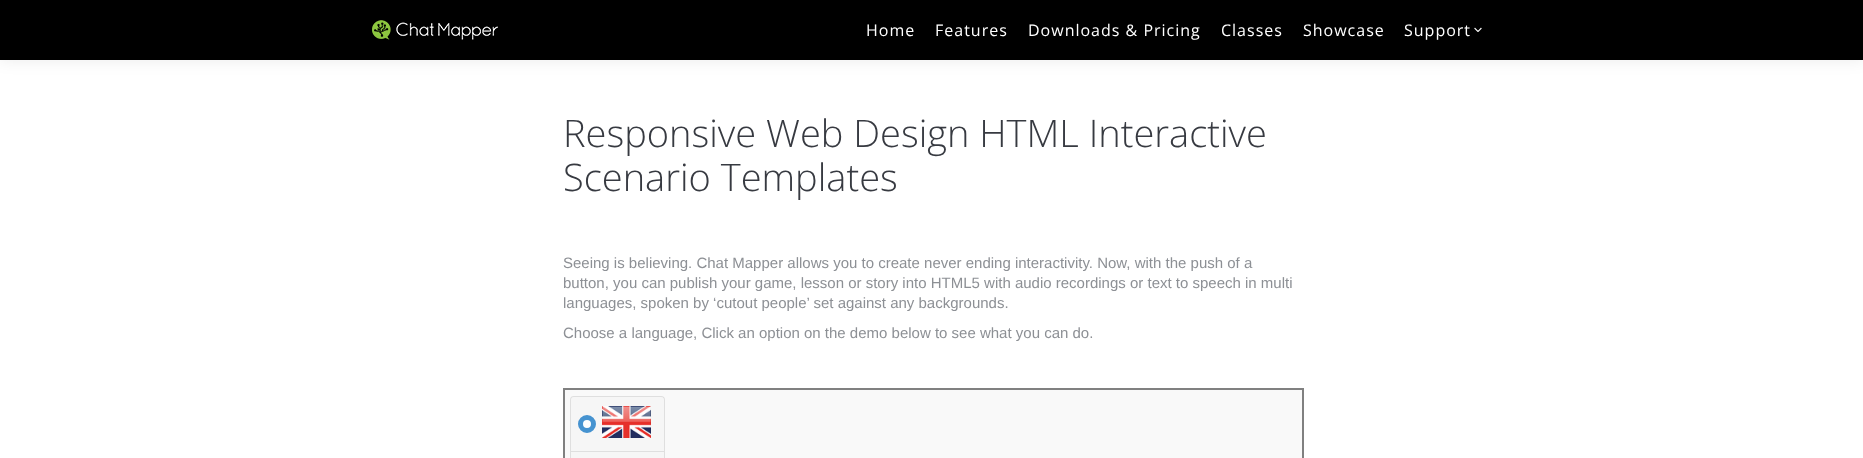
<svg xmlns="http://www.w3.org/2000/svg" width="1863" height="458">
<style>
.a{font:16px Open Sans;letter-spacing:1px;fill:#fff}
.b{font:300 38px Open Sans;fill:#373a41}
.c{font:15px Liberation Sans;fill:#8d9095}
</style>
<rect width="100%" height="100%" fill="#fff"/>
<path fill="#00000012" filter="blur(7.5px)" d="M-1 -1h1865v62H-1z"/>
<path fill="#000" d="M0 0h1863v60H0z"/>
<image href="1.png" x="372" y="20" width="126" height="20"/>
<image href="2.png" x="1474" y="27" width="8" height="5"/>
<path fill="none" stroke="#808080" stroke-width="2" d="M564 389h739v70H564z"/>
<image href="3.png" x="565" y="390" width="737" height="68"/>
<text class="a" x="866" y="36">Home</text>
<text class="a" x="935" y="36">Features</text>
<text class="a" x="1028" y="36">Downloads &amp; Pricing</text>
<text class="a" x="1221" y="36">Classes</text>
<text class="a" x="1303" y="36">Showcase</text>
<text class="a" x="1404" y="36">Support</text>
<text class="b" x="563" y="147">Responsive Web Design HTML Interactive</text>
<text class="b" x="563" y="191">Scenario Templates</text>
<text class="c" x="563" y="268">Seeing is believing. Chat Mapper allows you to create never ending interactivity. Now, with the push of a</text>
<text class="c" x="563" y="288">button, you can publish your game, lesson or story into HTML5 with audio recordings or text to speech in multi</text>
<text class="c" x="563" y="308">languages, spoken by ‘cutout people’ set against any backgrounds.</text>
<text class="c" x="563" y="338">Choose a language, Click an option on the demo below to see what you can do.</text>
</svg>
